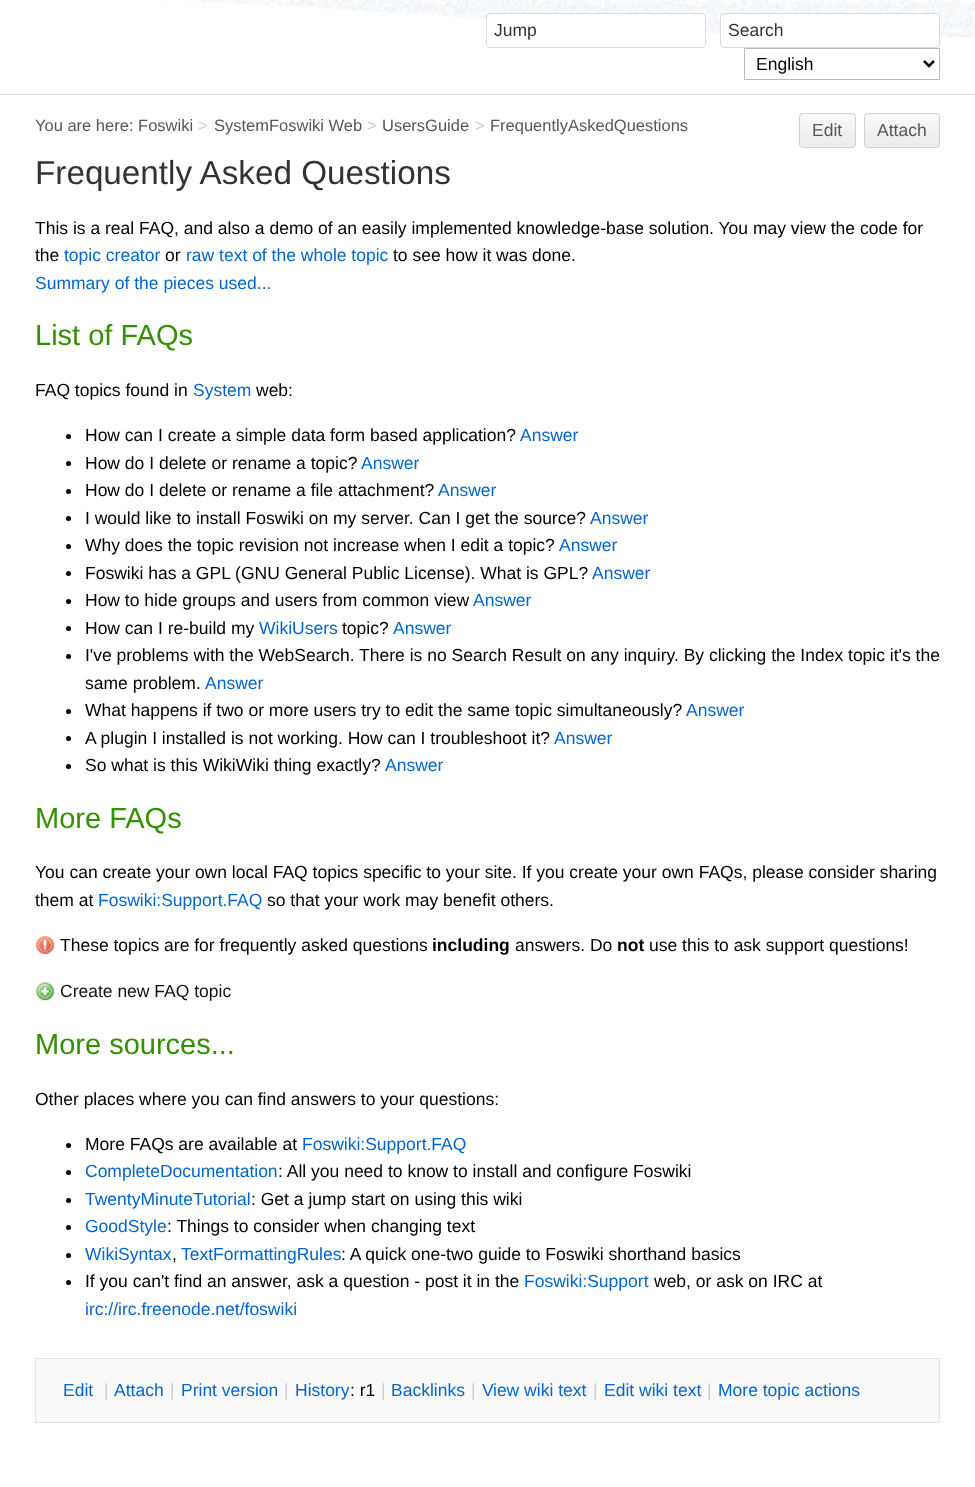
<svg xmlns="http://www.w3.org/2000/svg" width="975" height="1487">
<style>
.a{font:17.5px Liberation Sans;fill:#333}
.b{font:17.5px Liberation Sans;fill:#000}
.c{font:16.5px Liberation Sans;fill:#565656}
.d{font:16.5px Liberation Sans;fill:#ccc}
.e{font:17.5px Liberation Sans;fill:#565656}
.f{font:33.25px Liberation Sans;fill:#333}
.g{font:17.5px Liberation Sans;fill:#06c}
.h{font:29px Liberation Sans;fill:#339000}
.i{font:bold 17.5px Liberation Sans;fill:#000}
.j{font:17.5px Liberation Sans;fill:#111}
.k{font:17.5px Liberation Sans;fill:#ccc}
</style>
<defs>
<clipPath id="clip1"><rect x="799" y="113" width="57" height="35" rx="4"/></clipPath>
<linearGradient id="g1" gradientUnits="userSpaceOnUse" x1="828" y1="114" x2="828" y2="146"><stop offset="0" stop-color="#f8f8f8"/><stop offset="1" stop-color="#ebebeb"/></linearGradient>
<clipPath id="clip2"><rect x="864" y="113" width="76" height="35" rx="4"/></clipPath>
<linearGradient id="g2" gradientUnits="userSpaceOnUse" x1="902" y1="114" x2="902" y2="146"><stop offset="0" stop-color="#f8f8f8"/><stop offset="1" stop-color="#ebebeb"/></linearGradient>
</defs>
<rect width="100%" height="100%" fill="#dfdfdf"/>
<path fill="#fff" d="M0 0h975v94H0z"/>
<image href="1.png" x="162" y="0" width="813" height="38"/>
<rect fill="#fff" stroke="#dadada" x="486.5" y="13.5" width="219" height="34" rx="3.5"/>
<rect fill="#fff" stroke="#dadada" x="720.5" y="13.5" width="219" height="34" rx="3.5"/>
<path fill="none" stroke="#bbb" d="M744.5 48.5h195v31H744.5z"/>
<path fill="none" stroke="#000" stroke-width="2.5" d="M924 61l5 5l5-5"/>
<path fill="#fff" d="M0 95h975v1392H0z"/>
<rect fill="#f3f3f3" x="799" y="113" width="57" height="35" rx="4"/>
<g clip-path="url(#clip1)">
<path fill="url(#g1)" d="M799 114h57v32H799z"/>
</g>
<rect fill="none" stroke="#d2d2d2" x="799.5" y="113.5" width="56" height="34" rx="3.5"/>
<rect fill="#f3f3f3" x="864" y="113" width="76" height="35" rx="4"/>
<g clip-path="url(#clip2)">
<path fill="url(#g2)" d="M864 114h76v32H864z"/>
</g>
<rect fill="none" stroke="#d2d2d2" x="864.5" y="113.5" width="75" height="34" rx="3.5"/>
<circle fill="#000" cx="68.5" cy="436.5" r="2.5"/>
<circle fill="#000" cx="68.5" cy="463.5" r="2.5"/>
<circle fill="#000" cx="68.5" cy="491.5" r="2.5"/>
<circle fill="#000" cx="68.5" cy="518.5" r="2.5"/>
<circle fill="#000" cx="68.5" cy="546.5" r="2.5"/>
<circle fill="#000" cx="68.5" cy="573.5" r="2.5"/>
<circle fill="#000" cx="68.5" cy="601.5" r="2.5"/>
<circle fill="#000" cx="68.5" cy="628.5" r="2.5"/>
<circle fill="#000" cx="68.5" cy="656.5" r="2.5"/>
<circle fill="#000" cx="68.5" cy="711.5" r="2.5"/>
<circle fill="#000" cx="68.5" cy="738.5" r="2.5"/>
<circle fill="#000" cx="68.5" cy="766.5" r="2.5"/>
<image href="2.png" x="36" y="936" width="18" height="18"/>
<image href="3.png" x="36" y="982" width="18" height="19"/>
<circle fill="#000" cx="68.5" cy="1145.5" r="2.5"/>
<circle fill="#000" cx="68.5" cy="1172.5" r="2.5"/>
<circle fill="#000" cx="68.5" cy="1200.5" r="2.5"/>
<circle fill="#000" cx="68.5" cy="1227.5" r="2.5"/>
<circle fill="#000" cx="68.5" cy="1255.5" r="2.5"/>
<circle fill="#000" cx="68.5" cy="1282.5" r="2.5"/>
<path fill="#f9f9fa" stroke="#e2e2e2" d="M35.5 1358.5h904v64H35.5z"/>
<text class="a" x="494" y="36">Jump</text>
<text class="a" x="728" y="36">Search</text>
<text class="b" x="756" y="70">English</text>
<text class="c" x="35" y="131">You are here: Foswiki</text>
<text class="d" x="198" y="131">&gt;</text>
<text class="c" x="214" y="131">SystemFoswiki Web</text>
<text class="d" x="367" y="131">&gt;</text>
<text class="c" x="382" y="131">UsersGuide</text>
<text class="d" x="475" y="131">&gt;</text>
<text class="c" x="490" y="131">FrequentlyAskedQuestions</text>
<text class="e" x="812" y="136">Edit</text>
<text class="e" x="877" y="136">Attach</text>
<text class="f" x="35" y="184">Frequently Asked Questions</text>
<text class="b" x="35" y="234">This is a real FAQ, and also a demo of an easily implemented knowledge-base solution. You may view the code for</text>
<text class="b" x="35" y="261">the</text>
<text class="g" x="64" y="261">topic creator</text>
<text class="b" x="165" y="261">or</text>
<text class="g" x="186" y="261">raw text of the whole topic</text>
<text class="b" x="393" y="261">to see how it was done.</text>
<text class="g" x="35" y="289">Summary of the pieces used...</text>
<text class="h" x="35" y="345">List of FAQs</text>
<text class="b" x="35" y="396">FAQ topics found in</text>
<text class="g" x="193" y="396">System</text>
<text class="b" x="256" y="396">web:</text>
<text class="b" x="85" y="441">How can I create a simple data form based application?</text>
<text class="g" x="520" y="441">Answer</text>
<text class="b" x="85" y="469">How do I delete or rename a topic?</text>
<text class="g" x="361" y="469">Answer</text>
<text class="b" x="85" y="496">How do I delete or rename a file attachment?</text>
<text class="g" x="438" y="496">Answer</text>
<text class="b" x="85" y="524">I would like to install Foswiki on my server. Can I get the source?</text>
<text class="g" x="590" y="524">Answer</text>
<text class="b" x="85" y="551">Why does the topic revision not increase when I edit a topic?</text>
<text class="g" x="559" y="551">Answer</text>
<text class="b" x="85" y="579">Foswiki has a GPL (GNU General Public License). What is GPL?</text>
<text class="g" x="592" y="579">Answer</text>
<text class="b" x="85" y="606">How to hide groups and users from common view</text>
<text class="g" x="473" y="606">Answer</text>
<text class="b" x="85" y="634">How can I re-build my</text>
<text class="g" x="259" y="634">WikiUsers</text>
<text class="b" x="342" y="634">topic?</text>
<text class="g" x="393" y="634">Answer</text>
<text class="b" x="85" y="661">I've problems with the WebSearch. There is no Search Result on any inquiry. By clicking the Index topic it's the</text>
<text class="b" x="85" y="689">same problem.</text>
<text class="g" x="205" y="689">Answer</text>
<text class="b" x="85" y="716">What happens if two or more users try to edit the same topic simultaneously?</text>
<text class="g" x="686" y="716">Answer</text>
<text class="b" x="85" y="744">A plugin I installed is not working. How can I troubleshoot it?</text>
<text class="g" x="554" y="744">Answer</text>
<text class="b" x="85" y="771">So what is this WikiWiki thing exactly?</text>
<text class="g" x="385" y="771">Answer</text>
<text class="h" x="35" y="828">More FAQs</text>
<text class="b" x="35" y="878">You can create your own local FAQ topics specific to your site. If you create your own FAQs, please consider sharing</text>
<text class="b" x="35" y="906">them at</text>
<text class="g" x="98" y="906">Foswiki:Support.FAQ</text>
<text class="b" x="267" y="906">so that your work may benefit others.</text>
<text class="b" x="60" y="951">These topics are for frequently asked questions</text>
<text class="i" x="432" y="951">including</text>
<text class="b" x="515" y="951">answers. Do</text>
<text class="i" x="617" y="951">not</text>
<text class="b" x="649" y="951">use this to ask support questions!</text>
<text class="j" x="60" y="997">Create new FAQ topic</text>
<text class="h" x="35" y="1054">More sources...</text>
<text class="b" x="35" y="1105">Other places where you can find answers to your questions:</text>
<text class="b" x="85" y="1150">More FAQs are available at</text>
<text class="g" x="302" y="1150">Foswiki:Support.FAQ</text>
<text class="g" x="85" y="1177">CompleteDocumentation</text>
<text class="b" x="278" y="1177">: All you need to know to install and configure Foswiki</text>
<text class="g" x="85" y="1205">TwentyMinuteTutorial</text>
<text class="b" x="251" y="1205">: Get a jump start on using this wiki</text>
<text class="g" x="85" y="1232">GoodStyle</text>
<text class="b" x="167" y="1232">: Things to consider when changing text</text>
<text class="g" x="85" y="1260">WikiSyntax</text>
<text class="g" x="181" y="1260">TextFormattingRules</text>
<text class="b" x="341" y="1260">: A quick one-two guide to Foswiki shorthand basics</text>
<text class="b" x="172" y="1260">,</text>
<text class="b" x="85" y="1287">If you can't find an answer, ask a question - post it in the</text>
<text class="g" x="524" y="1287">Foswiki:Support</text>
<text class="b" x="654" y="1287">web, or ask on IRC at</text>
<text class="g" x="85" y="1315">irc://irc.freenode.net/foswiki</text>
<text class="g" x="63" y="1396">Edit</text>
<text class="k" x="104" y="1396">|</text>
<text class="g" x="114" y="1396">Attach</text>
<text class="k" x="170" y="1396">|</text>
<text class="g" x="181" y="1396">Print version</text>
<text class="k" x="284" y="1396">|</text>
<text class="g" x="295" y="1396">History</text>
<text class="b" x="350" y="1396">: r1</text>
<text class="k" x="381" y="1396">|</text>
<text class="g" x="391" y="1396">Backlinks</text>
<text class="k" x="471" y="1396">|</text>
<text class="g" x="482" y="1396">V</text>
<text class="g" x="493" y="1396">iew wiki text</text>
<text class="k" x="593" y="1396">|</text>
<text class="g" x="604" y="1396">Edit wiki text</text>
<text class="k" x="707" y="1396">|</text>
<text class="g" x="718" y="1396">More topic actions</text>
</svg>
